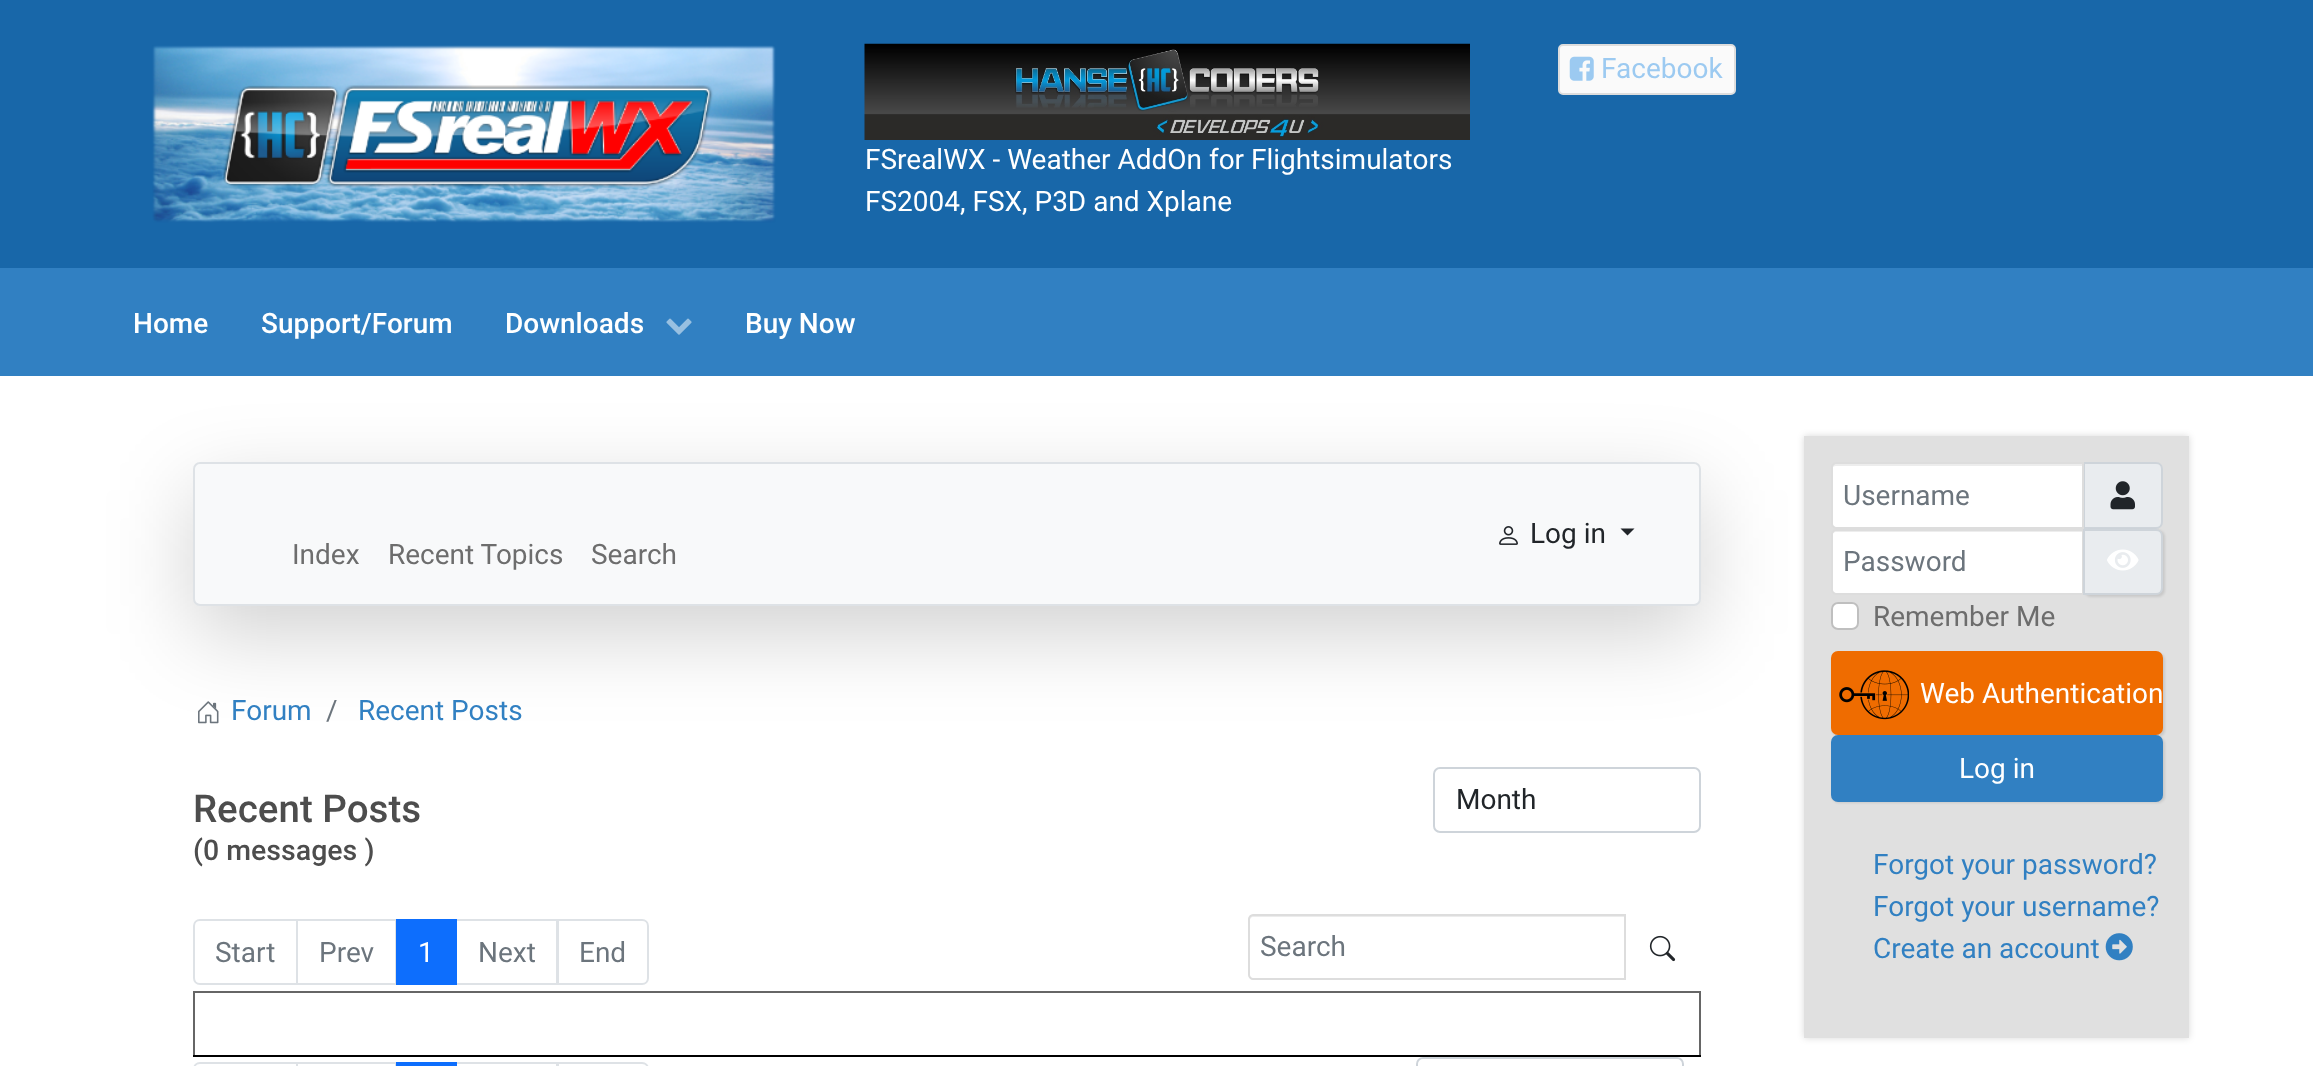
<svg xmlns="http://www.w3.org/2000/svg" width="2313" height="1066">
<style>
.a{font:28px Roboto;fill:#9ccaf1}
.b{font:28px Roboto;fill:#fff}
.c{font:500 28px Roboto;fill:#fff}
.d{font:28px Roboto;fill:#212529}
.e{font:28px Roboto;fill:#6d6d6d}
.f{font:28px Roboto;fill:#3180c2}
.g{font:28px Roboto;fill:#6c757d}
.h{font:500 38.5px Roboto;fill:#4d4d4d}
.i{font:500 28.5px Roboto;fill:#4d4d4d}
</style>
<rect width="100%" height="100%" fill="#fff"/>
<path fill="#1867a9" d="M0 0h2313v268H0z"/>
<image href="1.png" x="152" y="45" width="624" height="178"/>
<rect fill="#fafafa" stroke="#ddd" stroke-width="2" x="1559" y="45" width="176" height="49" rx="4"/>
<image href="2.png" x="1569" y="56" width="25" height="25"/>
<image href="3.png" x="864" y="43" width="606" height="97"/>
<image href="6.png" x="198" y="701" width="21" height="23"/>
<path fill="#00000026" filter="blur(3.5px)" d="M1804 436h385v602H1804z"/>
<path fill="#e0e0e0" d="M1804 436h385v602H1804z"/>
<rect fill="#0000002e" filter="blur(42px)" x="193" y="490" width="1508" height="144" rx="7"/>
<path fill="#3180c2" d="M0 268h2313v108H0z"/>
<image href="4.png" x="666" y="318" width="26" height="17"/>
<rect fill="#f8f9fa" stroke="#dee2e6" stroke-width="2" x="194" y="463" width="1506" height="142" rx="6"/>
<image href="5.png" x="1499" y="526" width="19" height="19"/>
<path fill="#212529" d="M1620.5 528.5h14l-7 7z"/>
<rect fill="none" stroke="#ced4da" stroke-width="2" x="1434" y="768" width="266" height="64" rx="6"/>
<path fill="none" stroke="#dee2e6" stroke-width="2" d="M200 920h97v64h-97c-3.5 0-6-2.5-6-6v-52c0-3.5 2.5-6 6-6z"/>
<path fill="none" stroke="#dee2e6" stroke-width="2" d="M297 920h99v64H297z"/>
<path fill="none" stroke="#dee2e6" stroke-width="2" d="M456 920h101v64H456z"/>
<path fill="#0d6efd" d="M396 919h61v66H396z"/>
<path fill="#fff" stroke="#dee2e6" stroke-width="2" d="M558 920h84c3.5 0 6 2.5 6 6v52c0 3.5-2.5 6-6 6h-84z"/>
<path fill="#ececec" d="M1253 917h371v-2h-370c-3 0-4 2-4 5c0-1 1-3 3-3z"/>
<path fill="none" stroke="#ddd" stroke-width="2" d="M1253 915h372v64h-372c-2 0-4-2-4-4v-56c0-2 2-4 4-4z"/>
<image href="7.png" x="1649" y="935" width="27" height="27"/>
<path fill="#666" d="M193 991h1508v2H193z"/>
<path fill="#666" d="M1699 991h2v66H1699z"/>
<path fill="#666" d="M193 991h2v66H193z"/>
<path fill="#000" d="M193 1055h1508v2H193z"/>
<path fill="none" stroke="#dee2e6" stroke-width="2" d="M200 1063h97v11h-97c-3.5 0-6-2.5-6-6v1c0-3.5 2.5-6 6-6z"/>
<path fill="#fff" d="M296 1064h2v2H296z"/>
<path fill="none" stroke="#dee2e6" stroke-width="2" d="M297 1063h99v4H297z"/>
<path fill="none" stroke="#dee2e6" stroke-width="2" d="M456 1063h101v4H456z"/>
<path fill="#0d6efd" d="M396 1062h61v4H396z"/>
<path fill="#fff" stroke="#dee2e6" stroke-width="2" d="M558 1063h84c3.5 0 6 2.5 6 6v-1c0 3.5-2.5 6-6 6h-84z"/>
<rect fill="none" stroke="#ced4da" stroke-width="2" x="1417" y="1058" width="266" height="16" rx="6"/>
<path fill="#fff" d="M1836 464h247v63h-247c-2 0-4-2-4-4v-55c0-2 2-4 4-4z"/>
<path fill="#00000012" d="M1836 466h246v61h1v-63h-247c-2 0-4 2-4 4v1c0-2 2-3 4-3z"/>
<path fill="#e9ecef" stroke="#ced4da" stroke-width="2" d="M2084 463h72c3.5 0 6 2.5 6 6v53c0 3.5-2.5 6-6 6h-72z"/>
<path fill="none" stroke="#ddd" stroke-width="2" d="M1836 463h247v65h-247c-2 0-4-2-4-4v-57c0-2 2-4 4-4z"/>
<image href="8.png" x="2110" y="481" width="25" height="29"/>
<path fill="#fff" d="M1836 530h247v63h-247c-2 0-4-2-4-4v-55c0-2 2-4 4-4z"/>
<path fill="#00000012" d="M1836 532h246v61h1v-63h-248c-3 1-3 3-3 6c0-2 2-4 4-4z"/>
<path fill="none" stroke="#ddd" stroke-width="2" d="M1836 530h247v64h-247c-2 0-4-2-4-4v-56c0-2 2-4 4-4z"/>
<rect fill="#0000001a" filter="blur(1px)" x="2084" y="530" width="81" height="67" rx="7"/>
<path fill="#e9ecef" stroke="#ced4da" stroke-width="2" d="M2084 530h72c3.5 0 6 2.5 6 6v52c0 3.5-2.5 6-6 6h-72z"/>
<image href="9.png" x="2107" y="549" width="32" height="22"/>
<rect fill="#fff" x="1831" y="602" width="28" height="28" rx="7"/>
<rect fill="none" stroke="#00000040" stroke-width="2" x="1832" y="603" width="26" height="26" rx="6"/>
<rect fill="#0000001a" filter="blur(1px)" x="1832" y="653" width="333" height="84" rx="7"/>
<rect fill="#ef6c00" x="1831" y="651" width="332" height="84" rx="7"/>
<image href="10.png" x="1839" y="670" width="70" height="50"/>
<rect fill="#0000001a" filter="blur(1px)" x="1832" y="737" width="333" height="66" rx="7"/>
<rect fill="#3180c2" x="1831" y="735" width="332" height="67" rx="7"/>
<image href="11.png" x="2105" y="933" width="28" height="28"/>
<text class="a" x="1601" y="78">Facebook</text>
<text class="b" x="865" y="169">FSrealWX - Weather AddOn for Flightsimulators</text>
<text class="b" x="865" y="211">FS2004, FSX, P3D and Xplane</text>
<text class="c" x="133" y="333">Home</text>
<text class="c" x="261" y="333">Support/Forum</text>
<text class="c" x="505" y="333">Downloads</text>
<text class="c" x="745" y="333">Buy Now</text>
<text class="d" x="1530" y="543">Log in</text>
<text class="e" x="292" y="564">Index</text>
<text class="e" x="388" y="564">Recent Topics</text>
<text class="e" x="591" y="564">Search</text>
<text class="f" x="231" y="720">Forum</text>
<text class="g" x="326" y="720">/</text>
<text class="f" x="358" y="720">Recent Posts</text>
<text class="h" x="193" y="822">Recent Posts</text>
<text class="i" x="193" y="860">(0 messages )</text>
<text class="d" x="1456" y="809">Month</text>
<text class="g" x="215" y="962">Start</text>
<text class="g" x="319" y="962">Prev</text>
<text class="b" x="418" y="962">1</text>
<text class="g" x="478" y="962">Next</text>
<text class="g" x="579" y="962">End</text>
<text class="g" x="1260" y="956">Search</text>
<text class="g" x="1843" y="505">Username</text>
<text class="g" x="1843" y="571">Password</text>
<text class="e" x="1873" y="626">Remember Me</text>
<text class="b" x="1920" y="703">Web Authentication</text>
<text class="b" x="1959" y="778">Log in</text>
<text class="f" x="1873" y="874">Forgot your password?</text>
<text class="f" x="1873" y="916">Forgot your username?</text>
<text class="f" x="1873" y="958">Create an account</text>
</svg>
